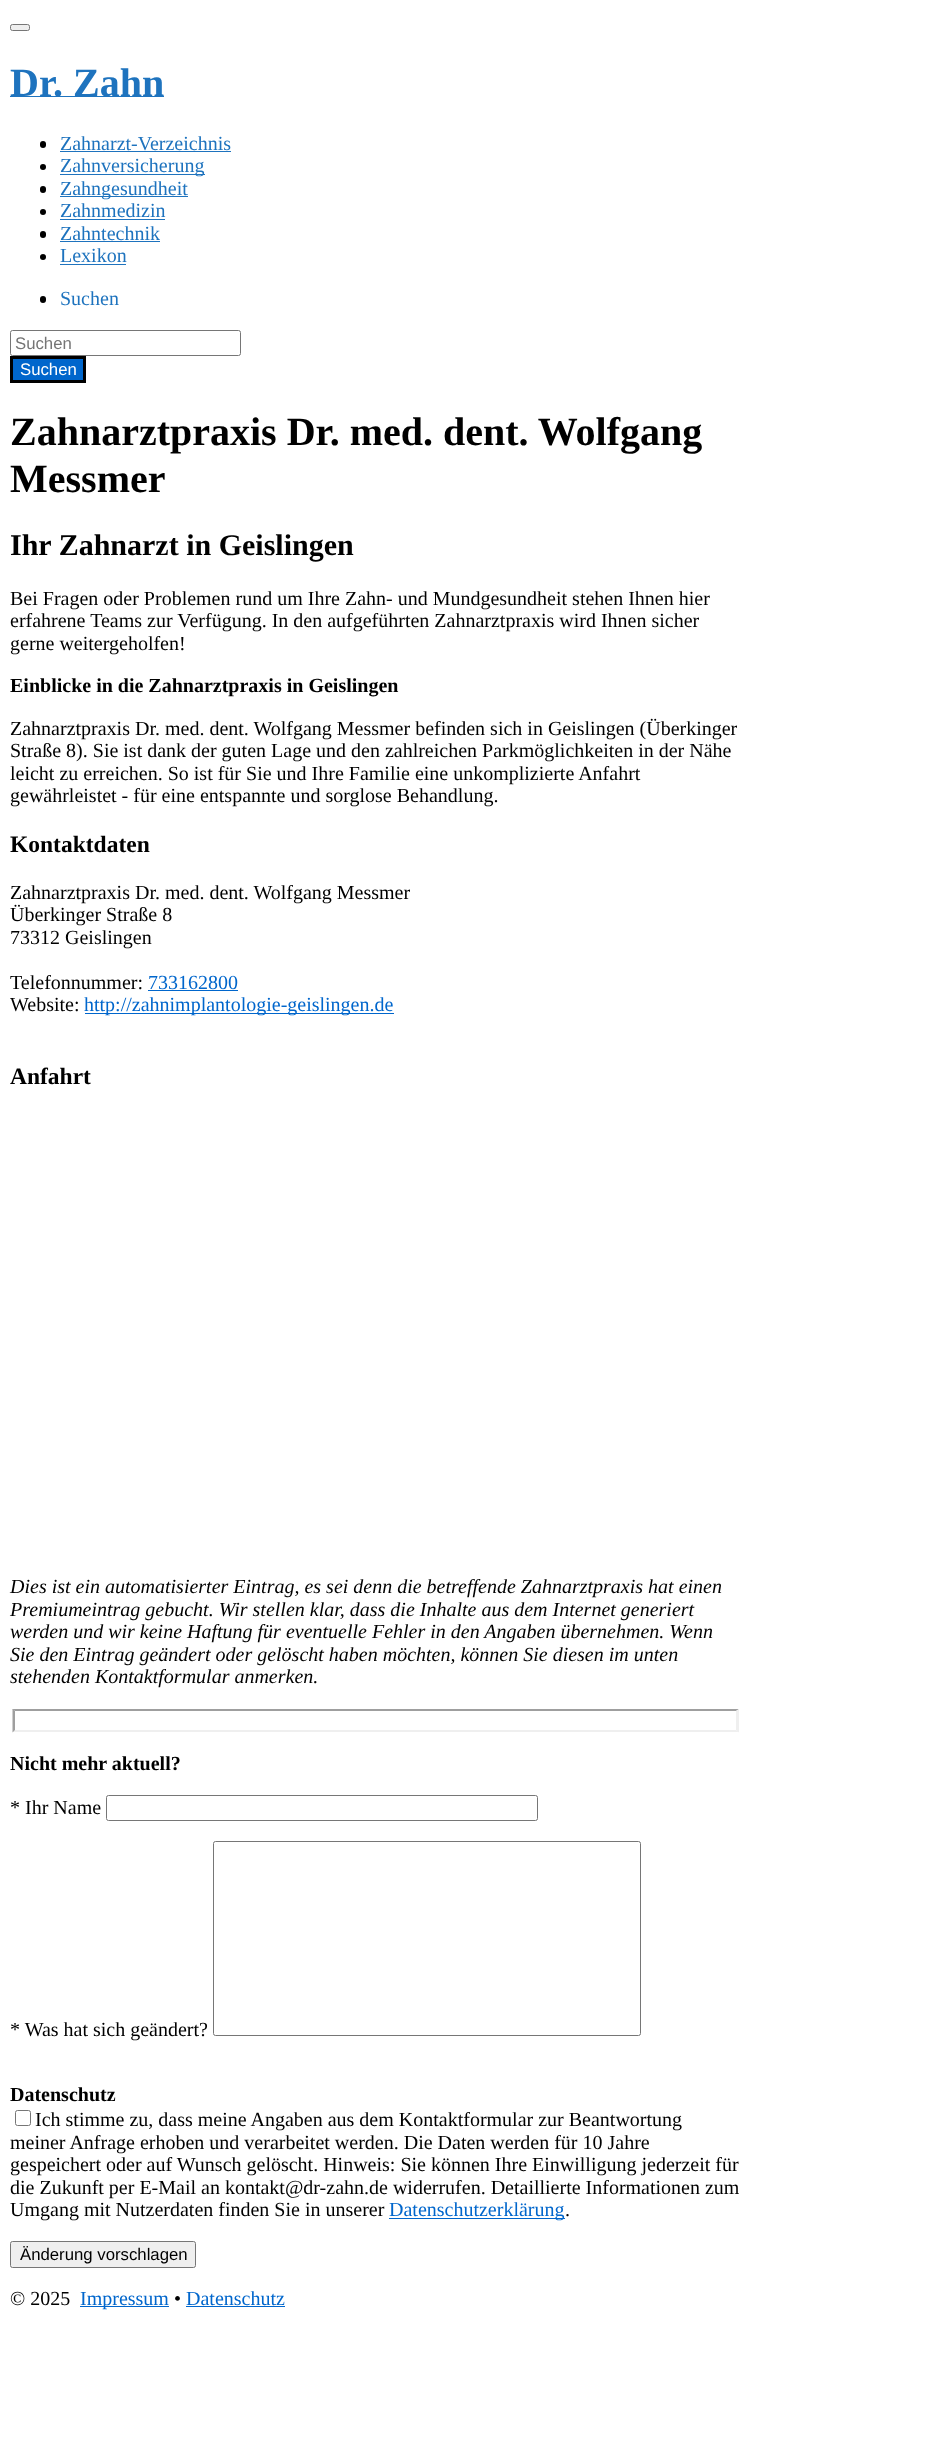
<svg xmlns="http://www.w3.org/2000/svg" width="933" height="2463">
<style>
.a{font:bold 40px Liberation Serif;fill:#1e73be}
.b{font:20px Liberation Serif;fill:#1e73be}
.c{font:16.75px Liberation Sans;fill:#757575}
.d{font:16.75px Liberation Sans;fill:#fff}
.e{font:bold 40px Liberation Serif;fill:#000}
.f{font:bold 30px Liberation Serif;fill:#000}
.g{font:20px Liberation Serif;fill:#000}
.h{font:bold 20px Liberation Serif;fill:#000}
.i{font:bold 23.5px Liberation Serif;fill:#000}
.j{font:20px Liberation Serif;fill:#06c}
.k{font:italic 20px Liberation Serif;fill:#000}
.l{font:16.75px Liberation Sans;fill:#000}
</style>
<rect width="100%" height="100%" fill="#fff"/>
<rect fill="#efefef" stroke="#767676" x="10.5" y="24.5" width="19" height="6" rx="2"/>
<path fill="#1e73be" d="M10 96h154v1H10z"/>
<rect fill="#000" x="40" y="141" width="6" height="7" rx="3"/>
<path fill="#1e73be" d="M60 151h171v1H60z"/>
<circle fill="#000" cx="43" cy="167" r="3"/>
<path fill="#1e73be" d="M60 174h145v1H60z"/>
<rect fill="#000" x="40" y="186" width="6" height="7" rx="3"/>
<path fill="#1e73be" d="M60 196h128v1H60z"/>
<circle fill="#000" cx="43" cy="212" r="3"/>
<path fill="#1e73be" d="M60 219h105v1H60z"/>
<rect fill="#000" x="40" y="231" width="6" height="7" rx="3"/>
<path fill="#1e73be" d="M60 241h100v1H60z"/>
<circle fill="#000" cx="43" cy="257" r="3"/>
<path fill="#1e73be" d="M60 264h66v1H60z"/>
<rect fill="#000" x="40" y="296" width="6" height="7" rx="3"/>
<rect fill="none" stroke="#767676" x="10.5" y="330.5" width="230" height="25" rx="2"/>
<path fill="#06c" stroke="#000" stroke-width="3" d="M11.5 357.5h73v24H11.5z"/>
<path fill="#06c" d="M148 990h90v1H148z"/>
<path fill="#06c" d="M85 1013h309v1H85z"/>
<path fill="#9f9f9f" d="M12 1709h727l-3 2h-721z"/>
<path fill="#efefef" d="M739 1709v23.5l-3-2.5v-19z"/>
<path fill="#efefef" d="M739 1732h-727l3-2h721z"/>
<path fill="#9f9f9f" d="M12.5 1732.5v-23.5l2.5 2v19z"/>
<rect fill="none" stroke="#767676" x="106.5" y="1795.5" width="431" height="25" rx="2"/>
<rect fill="none" stroke="#767676" x="213.5" y="1841.5" width="427" height="194" rx="2"/>
<rect fill="none" stroke="#767676" x="15.5" y="2110.5" width="15" height="15" rx="2"/>
<path fill="#06c" d="M389 2218h176v1H389z"/>
<rect fill="#efefef" stroke="#767676" x="10.5" y="2241.5" width="185" height="26" rx="2"/>
<path fill="#06c" d="M80 2306h89v1H80z"/>
<path fill="#06c" d="M186 2306h99v1H186z"/>
<text class="a" x="10" y="96">Dr. Zahn</text>
<text class="b" x="60" y="150">Zahnarzt-Verzeichnis</text>
<text class="b" x="60" y="172">Zahnversicherung</text>
<text class="b" x="60" y="195">Zahngesundheit</text>
<text class="b" x="60" y="217">Zahnmedizin</text>
<text class="b" x="60" y="240">Zahntechnik</text>
<text class="b" x="60" y="262">Lexikon</text>
<text class="b" x="60" y="305">Suchen</text>
<text class="c" x="15" y="349">Suchen</text>
<text class="d" x="20" y="375">Suchen</text>
<text class="e" x="10" y="445">Zahnarztpraxis Dr. med. dent. Wolfgang</text>
<text class="e" x="10" y="492">Messmer</text>
<text class="f" x="10" y="555">Ihr Zahnarzt in Geislingen</text>
<text class="g" x="10" y="605">Bei Fragen oder Problemen rund um Ihre Zahn- und Mundgesundheit stehen Ihnen hier</text>
<text class="g" x="10" y="627">erfahrene Teams zur Verfügung. In den aufgeführten Zahnarztpraxis wird Ihnen sicher</text>
<text class="g" x="10" y="650">gerne weitergeholfen!</text>
<text class="h" x="10" y="692">Einblicke in die Zahnarztpraxis in Geislingen</text>
<text class="g" x="10" y="735">Zahnarztpraxis Dr. med. dent. Wolfgang Messmer befinden sich in Geislingen (Überkinger</text>
<text class="g" x="10" y="757">Straße 8). Sie ist dank der guten Lage und den zahlreichen Parkmöglichkeiten in der Nähe</text>
<text class="g" x="10" y="780">leicht zu erreichen. So ist für Sie und Ihre Familie eine unkomplizierte Anfahrt</text>
<text class="g" x="10" y="802">gewährleistet - für eine entspannte und sorglose Behandlung.</text>
<text class="i" x="10" y="852">Kontaktdaten</text>
<text class="g" x="10" y="899">Zahnarztpraxis Dr. med. dent. Wolfgang Messmer</text>
<text class="g" x="10" y="921">Überkinger Straße 8</text>
<text class="g" x="10" y="944">73312 Geislingen</text>
<text class="g" x="10" y="989">Telefonnummer:</text>
<text class="j" x="148" y="989">733162800</text>
<text class="g" x="10" y="1011">Website:</text>
<text class="j" x="84" y="1011">http://zahnimplantologie-geislingen.de</text>
<text class="i" x="10" y="1084">Anfahrt</text>
<text class="k" x="10" y="1593">Dies ist ein automatisierter Eintrag, es sei denn die betreffende Zahnarztpraxis hat einen</text>
<text class="k" x="10" y="1616">Premiumeintrag gebucht. Wir stellen klar, dass die Inhalte aus dem Internet generiert</text>
<text class="k" x="10" y="1638">werden und wir keine Haftung für eventuelle Fehler in den Angaben übernehmen. Wenn</text>
<text class="k" x="10" y="1661">Sie den Eintrag geändert oder gelöscht haben möchten, können Sie diesen im unten</text>
<text class="k" x="10" y="1683">stehenden Kontaktformular anmerken.</text>
<text class="h" x="10" y="1770">Nicht mehr aktuell?</text>
<text class="g" x="10" y="1814">* Ihr Name</text>
<text class="g" x="10" y="2036">* Was hat sich geändert?</text>
<text class="h" x="10" y="2101">Datenschutz</text>
<text class="g" x="35" y="2126">Ich stimme zu, dass meine Angaben aus dem Kontaktformular zur Beantwortung</text>
<text class="g" x="10" y="2149">meiner Anfrage erhoben und verarbeitet werden. Die Daten werden für 10 Jahre</text>
<text class="g" x="10" y="2171">gespeichert oder auf Wunsch gelöscht. Hinweis: Sie können Ihre Einwilligung jederzeit für</text>
<text class="g" x="10" y="2194">die Zukunft per E-Mail an kontakt@dr-zahn.de widerrufen. Detaillierte Informationen zum</text>
<text class="g" x="10" y="2216">Umgang mit Nutzerdaten finden Sie in unserer</text>
<text class="j" x="389" y="2216">Datenschutzerklärung</text>
<text class="g" x="565" y="2216">.</text>
<text class="l" x="20" y="2260">Änderung vorschlagen</text>
<text class="g" x="10" y="2305">© 2025</text>
<text class="j" x="80" y="2305">Impressum</text>
<text class="g" x="174" y="2305">•</text>
<text class="j" x="186" y="2305">Datenschutz</text>
</svg>
